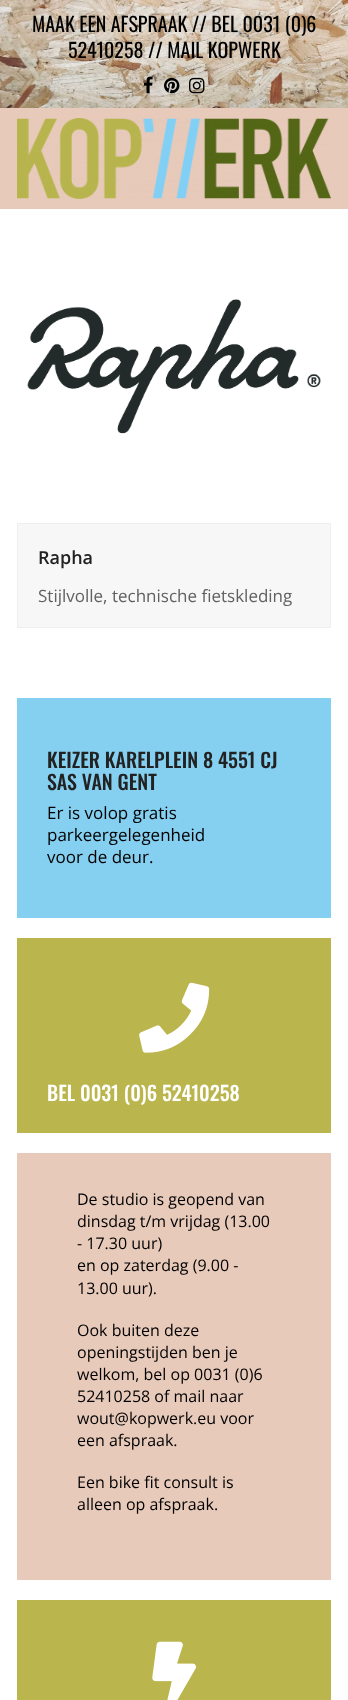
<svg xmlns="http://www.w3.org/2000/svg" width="348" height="1700">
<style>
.a{font:20px Oswald;fill:#000}
.b{font:600 18px Open Sans;fill:#222}
.c{font:17px Open Sans;fill:#616161}
.d{font:500 20px Oswald;fill:#222}
.e{font:17px Open Sans;fill:#000}
.f{font:500 20px Oswald;fill:#fff}
.g{font:16px Open Sans;fill:#000}
</style>
<rect width="100%" height="100%" fill="#fff"/>
<image href="1.png" x="0" y="0" width="348" height="108"/>
<image href="2.png" x="143" y="76" width="10" height="18"/>
<image href="3.png" x="164" y="77" width="16" height="17"/>
<image href="4.png" x="189" y="77" width="16" height="17"/>
<path fill="#e8cabb" d="M0 108h348v101H0z"/>
<image href="5.png" x="17" y="118" width="314" height="81"/>
<image href="6.png" x="27" y="299" width="294" height="135"/>
<path fill="#f7f7f7" stroke="#eee" d="M17.5 523.5h313v104H17.5z"/>
<path fill="#85d0f0" d="M17 698h314v220H17z"/>
<path fill="#bab54d" d="M17 938h314v195H17z"/>
<image href="7.png" x="139" y="982" width="71" height="71"/>
<path fill="#e8cabb" d="M17 1153h314v427H17z"/>
<path fill="#bab54d" d="M17 1600h314v100H17z"/>
<image href="8.png" x="152" y="1641" width="45" height="59"/>
<text class="a" x="32" y="32">MAAK EEN AFSPRAAK // BEL 0031 (0)6</text>
<text class="a" x="68" y="58">52410258 // MAIL KOPWERK</text>
<text class="b" x="38" y="564">Rapha</text>
<text class="c" x="38" y="602">Stijlvolle, technische fietskleding</text>
<text class="d" x="47" y="768">KEIZER KARELPLEIN 8 4551 CJ</text>
<text class="d" x="47" y="790">SAS VAN GENT</text>
<text class="e" x="47" y="819">Er is volop gratis</text>
<text class="e" x="47" y="841">parkeergelegenheid</text>
<text class="e" x="47" y="863">voor de deur.</text>
<text class="f" x="47" y="1101">BEL 0031 (0)6 52410258</text>
<text class="g" x="77" y="1205">De studio is geopend van</text>
<text class="g" x="77" y="1227">dinsdag t/m vrijdag (13.00</text>
<text class="g" x="77" y="1249">- 17.30 uur)</text>
<text class="g" x="77" y="1271">en op zaterdag (9.00 -</text>
<text class="g" x="77" y="1294">13.00 uur).</text>
<text class="g" x="77" y="1336">Ook buiten deze</text>
<text class="g" x="77" y="1358">openingstijden ben je</text>
<text class="g" x="77" y="1380">welkom, bel op 0031 (0)6</text>
<text class="g" x="77" y="1402">52410258 of mail naar</text>
<text class="g" x="77" y="1424">wout@kopwerk.eu voor</text>
<text class="g" x="77" y="1446">een afspraak.</text>
<text class="g" x="77" y="1488">Een bike fit consult is</text>
<text class="g" x="77" y="1510">alleen op afspraak.</text>
</svg>
